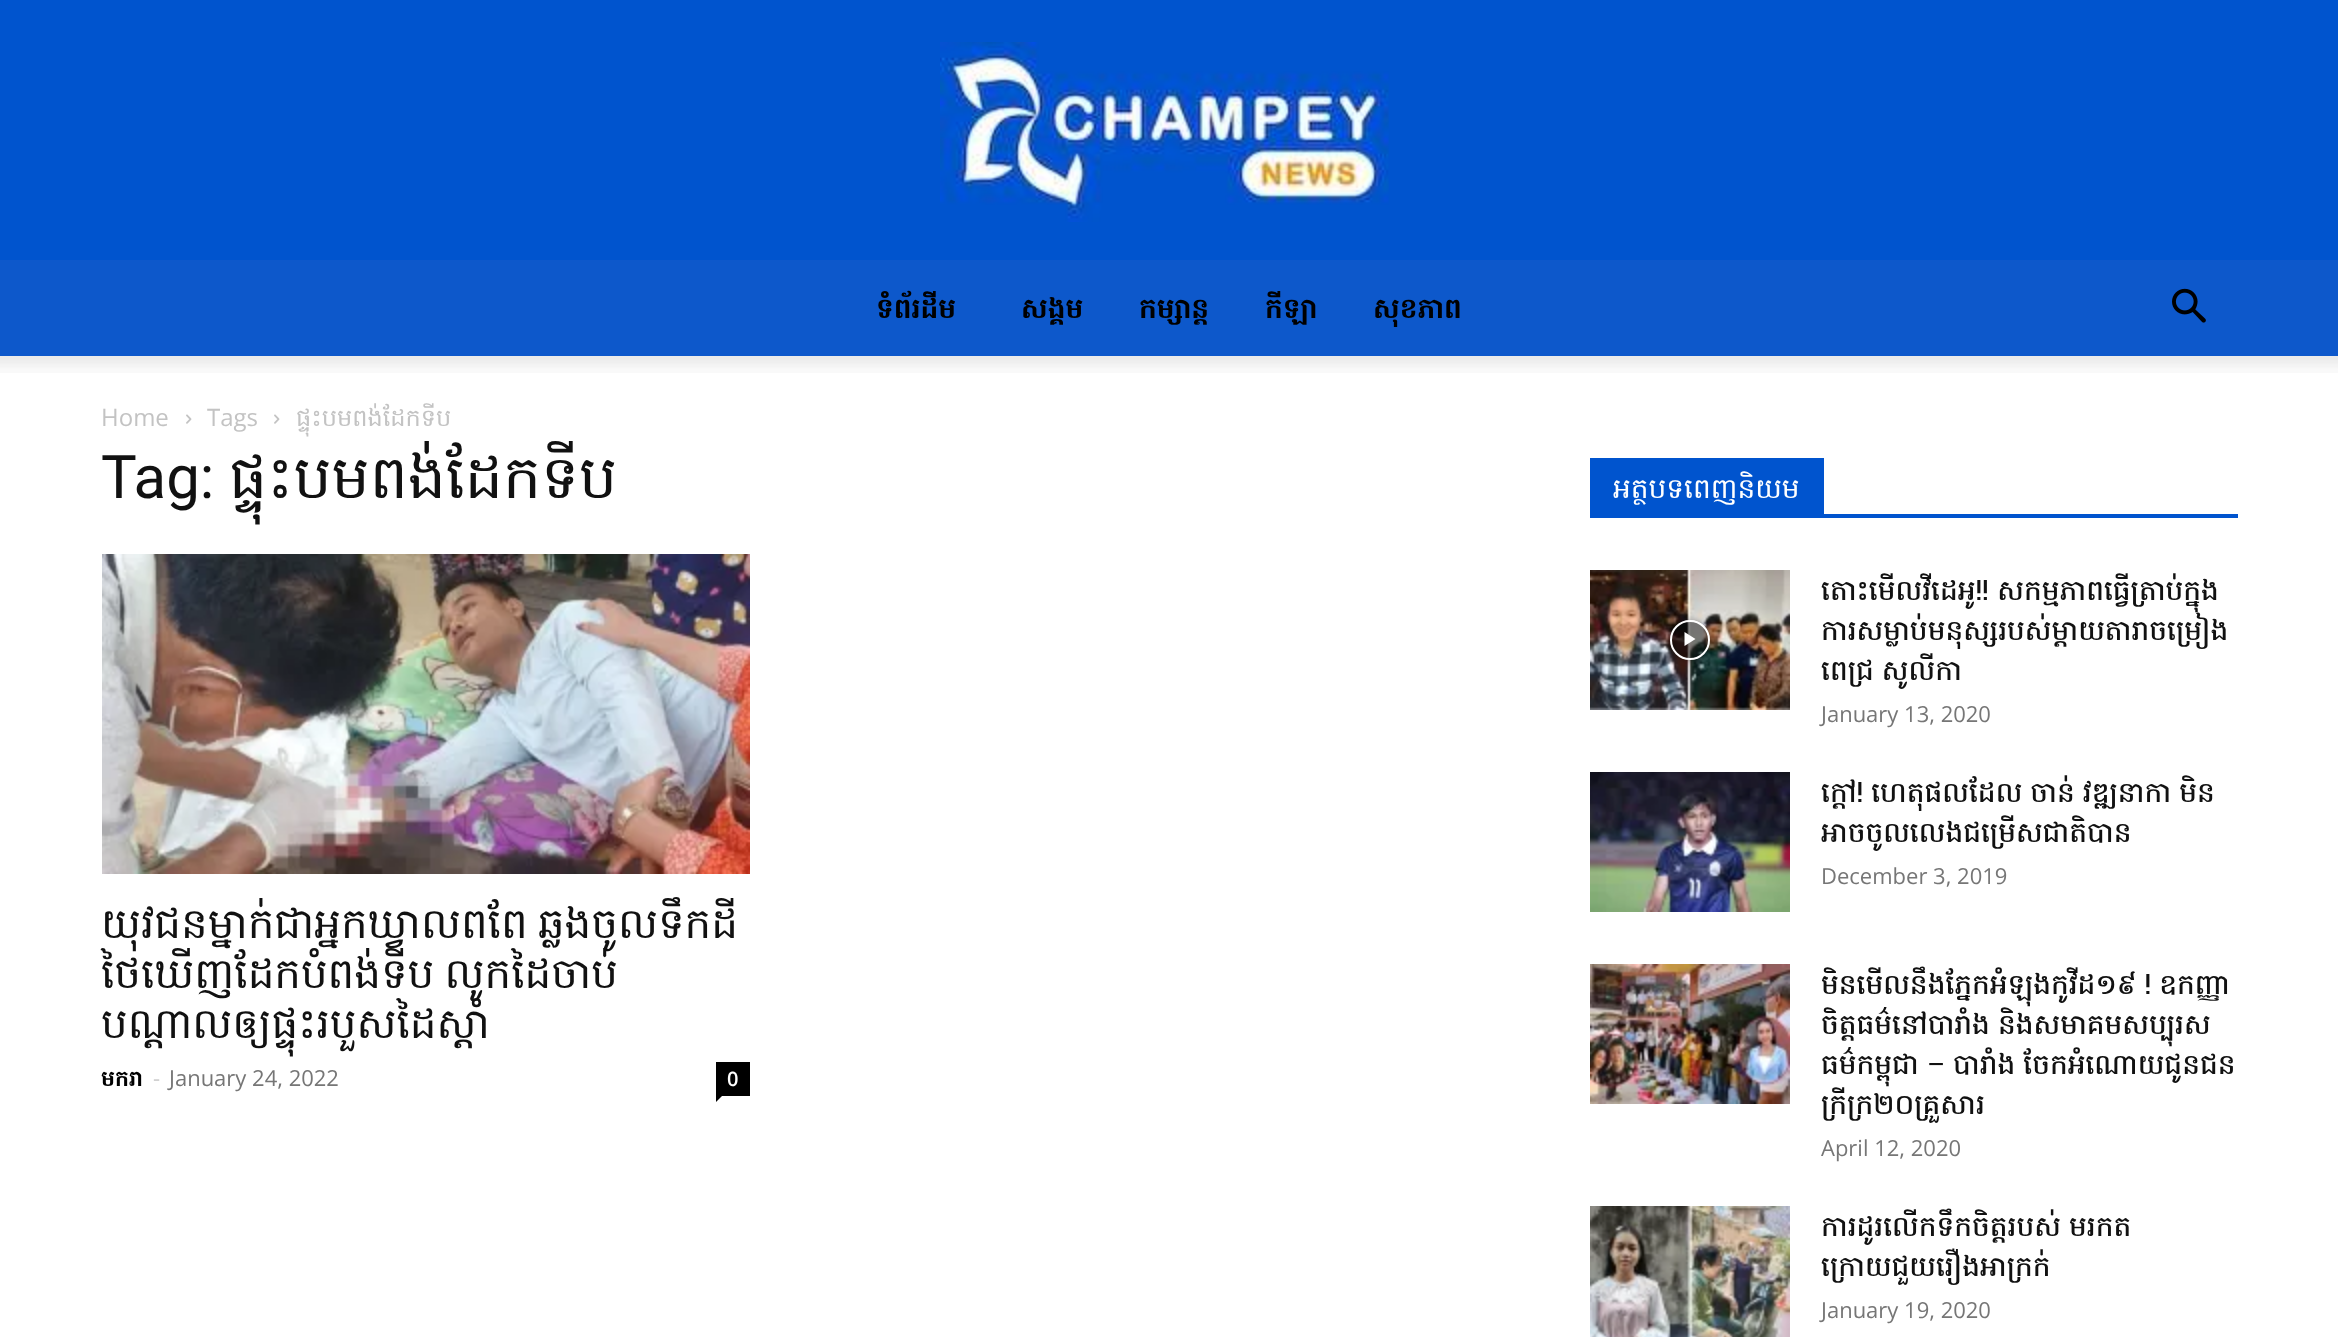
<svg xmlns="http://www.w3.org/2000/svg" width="2338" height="1337">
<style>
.a{font:bold 28px Hanuman;fill:#000}
.b{font:24px Open Sans;fill:#c3c3c3}
.c{font:24px Hanuman;fill:#c3c3c3}
.d{font:60px Roboto;fill:#111}
.e{font:60px Hanuman;fill:#111}
.f{font:42px Hanuman;fill:#111}
.g{font:bold 22px Hanuman;fill:#000}
.h{font:22px Open Sans;fill:#ccc}
.i{font:22px Open Sans;fill:#767676}
.j{font:600 20px Open Sans;fill:#fff}
.k{font:28px Hanuman;fill:#fff}
.l{font:500 28px Hanuman;fill:#111}
.m{font:28px Roboto;fill:#111}
</style>
<defs>
<clipPath id="clip1"><path d="M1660 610h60v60h-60zm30 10c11 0 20 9 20 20c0 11-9 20-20 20c-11 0-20-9-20-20c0-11 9-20 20-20z" clip-rule="evenodd"/></clipPath>
</defs>
<rect width="100%" height="100%" fill="#fff"/>
<path fill="#0054ce" d="M0 0h2338v260H0z"/>
<image href="1.png" x="940" y="42" width="449" height="180"/>
<path fill="#0d58cb" d="M0 260h2338v96H0z"/>
<image href="2.png" x="2172" y="288" width="34" height="35"/>
<image href="3.png" x="0" y="356" width="2338" height="17"/>
<image href="4.png" x="186" y="414" width="6" height="10"/>
<image href="4.png" x="274" y="414" width="6" height="10"/>
<image href="5.png" x="102" y="554" width="648" height="320"/>
<path fill="#000" d="M716 1062h34v34H716z"/>
<path fill="#000" d="M716 1096h6l-6 6z"/>
<path fill="#0054ce" d="M1590 514h648v4H1590z"/>
<path fill="#0054ce" d="M1590 458h234v56H1590z"/>
<image href="6.png" x="1590" y="570" width="200" height="140"/>
<g clip-path="url(#clip1)">
<rect fill="#00000066" filter="blur(3px)" x="1670" y="620" width="40" height="40" rx="20"/>
</g>
<circle fill="#0000007a" stroke="#fff" stroke-width="2" cx="1690" cy="640" r="19"/>
<path fill="#fff" d="M1684.5 632v14l11-7z"/>
<image href="7.png" x="1590" y="772" width="200" height="140"/>
<image href="8.png" x="1590" y="964" width="200" height="140"/>
<image href="9.png" x="1590" y="1206" width="200" height="131"/>
<text class="a" x="876" y="318">ទំព័រដើម</text>
<text class="a" x="1021" y="318">សង្គម</text>
<text class="a" x="1139" y="318">កម្សាន្ត</text>
<text class="a" x="1265" y="318">កីឡា</text>
<text class="a" x="1373" y="318">សុខភាព</text>
<text class="b" x="101" y="426">Home</text>
<text class="b" x="207" y="426">Tags</text>
<text class="c" x="296" y="426">ផ្ទុះបមពង់ដែកទីប</text>
<text class="d" x="101" y="498">Tag:</text>
<text class="e" x="229" y="498">ផ្ទុះបមពង់ដែកទីប</text>
<text class="f" x="101" y="938" word-spacing="-4">យុវជនម្នាក់ជាអ្នកឃ្វាលពពែ ឆ្លងចូលទឹកដី</text>
<text class="f" x="101" y="988" word-spacing="-4">ថៃឃើញដែកបំពង់ទីប លូកដៃចាប់</text>
<text class="f" x="101" y="1038">បណ្ដាលឲ្យផ្ទុះរបួសដៃស្ដាំ</text>
<text class="g" x="101" y="1086">មករា</text>
<text class="h" x="153" y="1086">-</text>
<text class="i" x="169" y="1086">January 24, 2022</text>
<text class="j" x="727" y="1086">0</text>
<text class="k" x="1613" y="498">អត្ថបទពេញនិយម</text>
<text class="l" x="1821" y="600" word-spacing="-1">តោះមើលវីដេអូ!! សកម្មភាពធ្វើត្រាប់ក្នុង</text>
<text class="l" x="1821" y="640">ការសម្លាប់មនុស្សរបស់ម្តាយតារាចម្រៀង</text>
<text class="l" x="1821" y="680" word-spacing="-1.5">ពេជ្រ សូលីកា</text>
<text class="i" x="1821" y="722">January 13, 2020</text>
<text class="l" x="1821" y="802" word-spacing="-1.5">ក្តៅ! ហេតុផលដែល ចាន់ វឌ្ឍនាកា មិន</text>
<text class="l" x="1821" y="842">អាចចូលលេងជម្រើសជាតិបាន</text>
<text class="i" x="1821" y="884">December 3, 2019</text>
<text class="l" x="1821" y="994" word-spacing="-1.5">មិនមើលនឹងភ្នែកអំឡុងកូវីដ១៩ ! ឧកញ្ញា</text>
<text class="l" x="1821" y="1034" word-spacing="-1.5">ចិត្តធម៌នៅបារាំង និងសមាគមសប្បុរស</text>
<text class="l" x="1821" y="1074">ធម៌កម្ពុជា</text>
<text class="m" x="1927" y="1074">–</text>
<text class="l" x="1953" y="1074" word-spacing="-1.5">បារាំង ចែកអំណោយជូនជន</text>
<text class="l" x="1821" y="1114">ក្រីក្រ២០គ្រួសារ</text>
<text class="i" x="1821" y="1156">April 12, 2020</text>
<text class="l" x="1821" y="1236" word-spacing="-1.5">ការដូរលើកទឹកចិត្តរបស់ មរកត</text>
<text class="l" x="1821" y="1276">ក្រោយជួយរឿងអាក្រក់</text>
<text class="i" x="1821" y="1318">January 19, 2020</text>
</svg>
